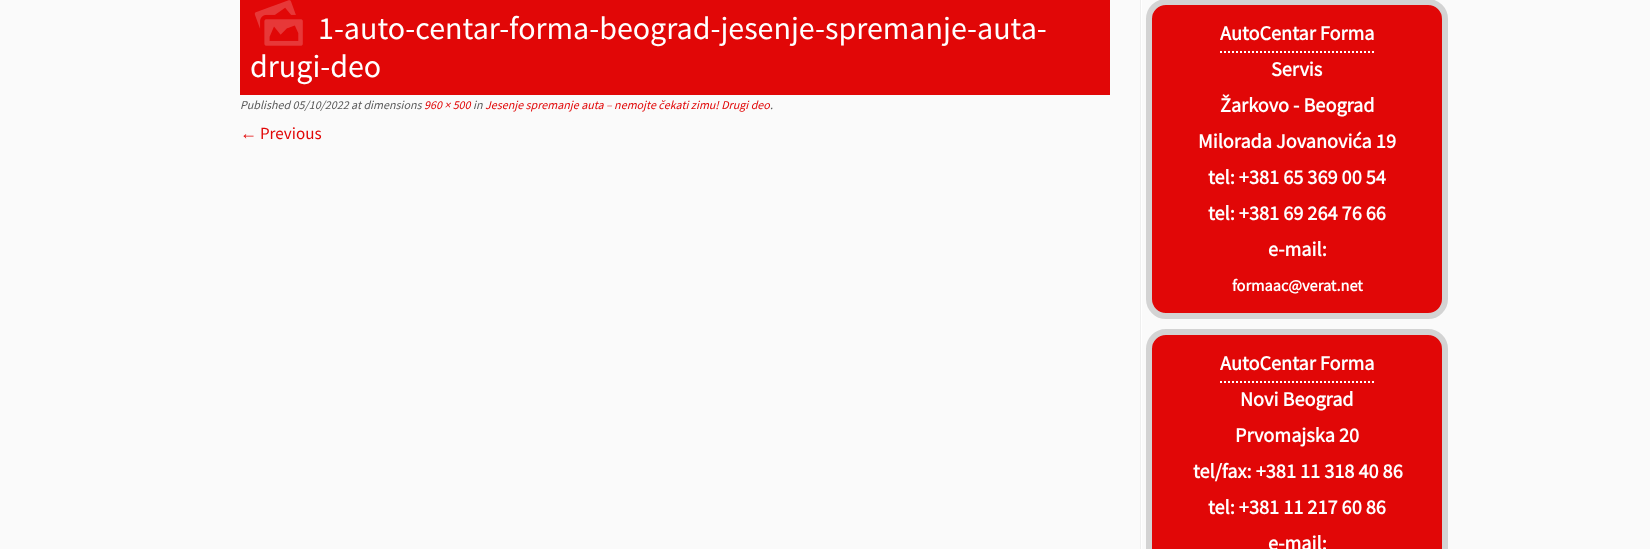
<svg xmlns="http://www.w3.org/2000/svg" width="1650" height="549">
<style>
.a{font:32px Source Sans Pro;fill:#fff}
.b{font:italic 12px Source Sans Pro;fill:#5a5a5a}
.c{font:italic 12px Source Sans Pro;fill:#e10707}
.d{font:17px Liberation Serif;fill:#e10707}
.e{font:17px Source Sans Pro;fill:#e10707}
.f{font:bold 20.25px Source Sans Pro;fill:#fff}
.g{font:bold 16.25px Source Sans Pro;fill:#fff}
</style>
<rect width="100%" height="100%" fill="#fafafa"/>
<path fill="#e10707" d="M240 0h870v95H240z"/>
<image href="1.png" x="254" y="0" width="49" height="46"/>
<path fill="#eee" d="M1140 0h1v549H1140z"/>
<path fill="#fff" d="M1141 0h1v549H1141z"/>
<rect fill="#e10707" stroke="#d3d3d3" stroke-width="6" x="1149" y="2" width="296" height="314" rx="17"/>
<path fill="none" stroke="#fff" stroke-width="2" stroke-dasharray="2 2" d="M1220 52h154"/>
<rect fill="#e10707" stroke="#d3d3d3" stroke-width="6" x="1149" y="332" width="296" height="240" rx="17"/>
<path fill="none" stroke="#fff" stroke-width="2" stroke-dasharray="2 2" d="M1220 382h154"/>
<text class="a" x="318" y="39">1-auto-centar-forma-beograd-jesenje-spremanje-auta-</text>
<text class="a" x="250" y="77">drugi-deo</text>
<text class="b" x="240" y="109">Published 05/10/2022 at dimensions</text>
<text class="c" x="424" y="109">960 × 500</text>
<text class="b" x="473" y="109">in</text>
<text class="c" x="485" y="109">Jesenje spremanje auta – nemojte čekati zimu! Drugi deo</text>
<text class="b" x="770" y="109">.</text>
<text class="d" x="240" y="139">←</text>
<text class="e" x="260" y="139">Previous</text>
<text class="f" x="1220" y="40">AutoCentar Forma</text>
<text class="f" x="1271" y="76">Servis</text>
<text class="f" x="1220" y="112">Žarkovo - Beograd</text>
<text class="f" x="1198" y="148">Milorada Jovanovića 19</text>
<text class="f" x="1208" y="184">tel: +381 65 369 00 54</text>
<text class="f" x="1208" y="220">tel: +381 69 264 76 66</text>
<text class="f" x="1268" y="256">e-mail:</text>
<text class="g" x="1232" y="291">formaac@verat.net</text>
<text class="f" x="1220" y="370">AutoCentar Forma</text>
<text class="f" x="1240" y="406">Novi Beograd</text>
<text class="f" x="1235" y="442">Prvomajska 20</text>
<text class="f" x="1193" y="478">tel/fax: +381 11 318 40 86</text>
<text class="f" x="1208" y="514">tel: +381 11 217 60 86</text>
<text class="f" x="1268" y="550">e-mail:</text>
</svg>
